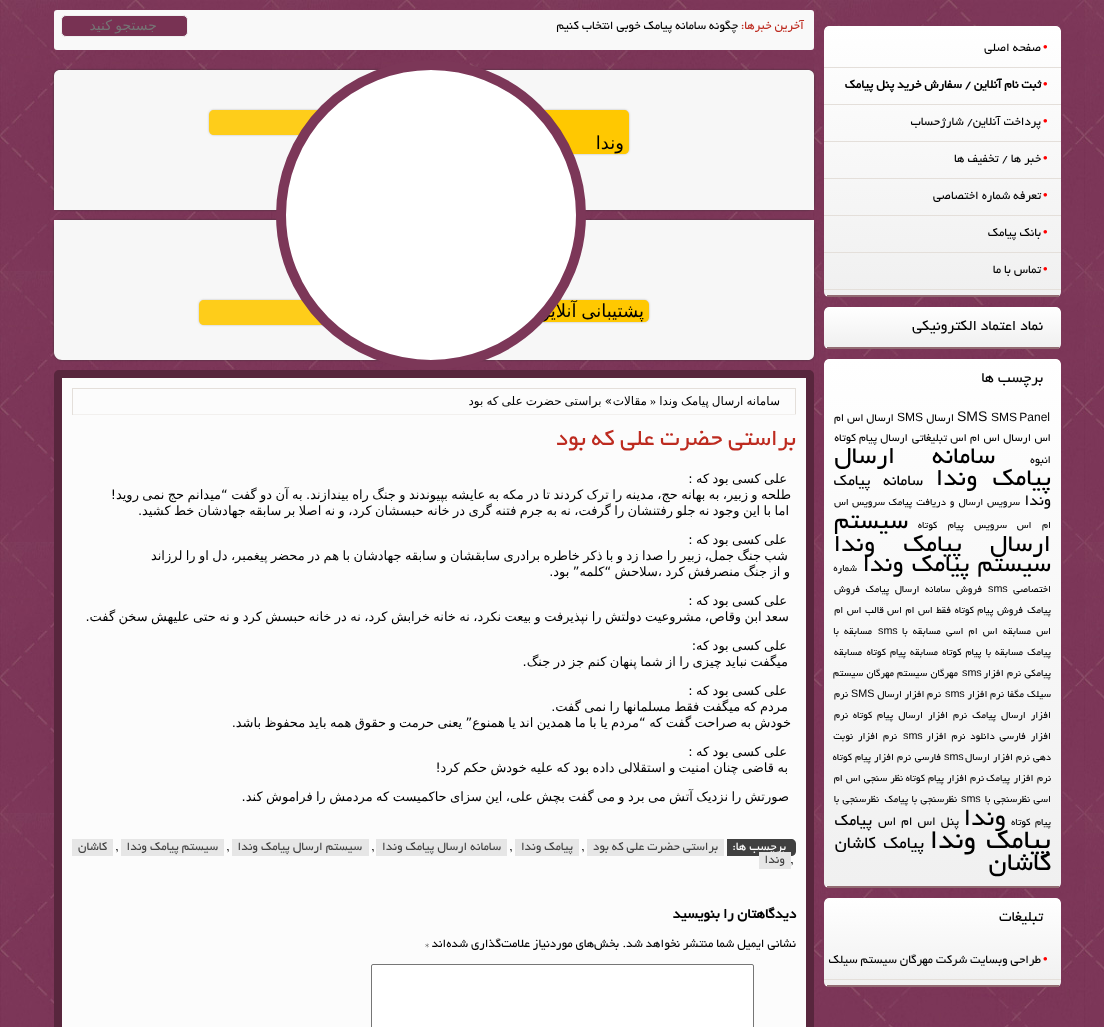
<svg xmlns="http://www.w3.org/2000/svg" width="1104" height="1027">
<style>
.a{font:13px Liberation Sans;fill:#f00}
.b{font:13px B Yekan;direction:rtl;fill:#000}
.c{font:bold 13px B Yekan;direction:rtl;fill:#000}
.d{font:16px B Yekan;direction:rtl;fill:#000}
.e{font:12px Liberation Sans;fill:#000}
.f{font:14px Liberation Sans;fill:#000}
.g{font:12px B Yekan;direction:rtl;fill:#000}
.h{font:26.5px B Yekan;direction:rtl;fill:#000}
.i{font:16.75px B Yekan;direction:rtl;fill:#000}
.j{font:10.75px B Yekan;direction:rtl;fill:#000}
.k{font:26.25px B Yekan;direction:rtl;fill:#000}
.l{font:10.75px Liberation Sans;fill:#000}
.m{font:27px B Yekan;direction:rtl;fill:#000}
.n{font:13.25px B Yekan;direction:rtl;fill:#000}
.o{font:17px B Yekan;direction:rtl;fill:#000}
.p{font:29.5px B Yekan;direction:rtl;fill:#000}
.q{font:18.5px B Yekan;direction:rtl;fill:#000}
.r{font:28px B Yekan;direction:rtl;fill:#000}
.s{font:13px B Yekan;direction:rtl;fill:#bd2b20}
.t{font:14px DejaVu Sans;direction:rtl;fill:#757575}
.u{font:18px DejaVu Sans;direction:rtl;fill:#000}
.v{font:12px DejaVu Sans;direction:rtl;fill:#000}
.w{font:12px Liberation Serif;fill:#000}
.x{font:25px B Yekan;direction:rtl;fill:#bd2b20}
.y{font:13px DejaVu Sans;direction:rtl;fill:#000}
.z{font:13px B Yekan;direction:rtl;fill:#fff}
.a1{font:13px B Yekan;direction:rtl;fill:#404040}
.b1{font:13px B Yekan;fill:#000}
.c1{font:bold 15.25px B Yekan;direction:rtl;fill:#000}
</style>
<defs>
<clipPath id="clip1"><rect x="824" y="26" width="237" height="271" rx="5"/></clipPath>
<linearGradient id="g1" gradientUnits="userSpaceOnUse" x1="943" y1="26" x2="943" y2="295"><stop offset="0" stop-color="#fff"/><stop offset="1" stop-color="#f0f0f0"/></linearGradient>
<linearGradient id="g2" gradientUnits="userSpaceOnUse" x1="943" y1="295" x2="943" y2="564"><stop offset="0" stop-color="#fff"/><stop offset="1" stop-color="#f0f0f0"/></linearGradient>
<clipPath id="clip2"><rect x="824" y="307" width="237" height="42" rx="5"/></clipPath>
<linearGradient id="g3" gradientUnits="userSpaceOnUse" x1="943" y1="307" x2="943" y2="347"><stop offset="0" stop-color="#fff"/><stop offset="1" stop-color="#f0f0f0"/></linearGradient>
<linearGradient id="g4" gradientUnits="userSpaceOnUse" x1="943" y1="347" x2="943" y2="387"><stop offset="0" stop-color="#fff"/><stop offset="1" stop-color="#f0f0f0"/></linearGradient>
<clipPath id="clip3"><rect x="824" y="359" width="237" height="529" rx="5"/></clipPath>
<linearGradient id="g5" gradientUnits="userSpaceOnUse" x1="943" y1="359" x2="943" y2="886"><stop offset="0" stop-color="#fff"/><stop offset="1" stop-color="#f0f0f0"/></linearGradient>
<linearGradient id="g6" gradientUnits="userSpaceOnUse" x1="943" y1="886" x2="943" y2="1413"><stop offset="0" stop-color="#fff"/><stop offset="1" stop-color="#f0f0f0"/></linearGradient>
<clipPath id="clip4"><rect x="824" y="898" width="237" height="89" rx="5"/></clipPath>
<linearGradient id="g7" gradientUnits="userSpaceOnUse" x1="943" y1="898" x2="943" y2="985"><stop offset="0" stop-color="#fff"/><stop offset="1" stop-color="#f0f0f0"/></linearGradient>
<linearGradient id="g8" gradientUnits="userSpaceOnUse" x1="943" y1="985" x2="943" y2="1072"><stop offset="0" stop-color="#fff"/><stop offset="1" stop-color="#f0f0f0"/></linearGradient>
</defs>
<rect width="100%" height="100%" fill="#fff"/>
<image href="1.png" x="0" y="0" width="1104" height="1027"/>
<g clip-path="url(#clip1)">
<path fill="url(#g1)" d="M829 26h227c3 0 5 2 5 5v264h-237v-264c0-3 2-5 5-5z"/>
<path fill="url(#g2)" d="M824 295h237v2H824z"/>
</g>
<path fill="#926b72" d="M827 295h232v2H827z"/>
<path fill="#e4dfda" d="M824 67h237v1H824z"/>
<path fill="#e4dfda" d="M824 104h237v1H824z"/>
<path fill="#e4dfda" d="M824 141h237v1H824z"/>
<path fill="#e4dfda" d="M824 178h237v1H824z"/>
<path fill="#e4dfda" d="M824 215h237v1H824z"/>
<path fill="#e4dfda" d="M824 252h237v1H824z"/>
<path fill="#e4dfda" d="M824 289h237v1H824z"/>
<g clip-path="url(#clip2)">
<path fill="url(#g3)" d="M829 307h227c3 0 5 2 5 5v35h-237v-35c0-3 2-5 5-5z"/>
<path fill="url(#g4)" d="M824 347h237v2H824z"/>
</g>
<path fill="#926b72" d="M827 347h232v2H827z"/>
<g clip-path="url(#clip3)">
<path fill="url(#g5)" d="M829 359h227c3 0 5 2 5 5v522h-237v-522c0-3 2-5 5-5z"/>
<path fill="url(#g6)" d="M824 886h237v2H824z"/>
</g>
<path fill="#926b72" d="M827 886h232v2H827z"/>
<g clip-path="url(#clip4)">
<path fill="url(#g7)" d="M829 898h227c3 0 5 2 5 5v82h-237v-82c0-3 2-5 5-5z"/>
<path fill="url(#g8)" d="M824 985h237v2H824z"/>
</g>
<path fill="#926b72" d="M827 985h232v2H827z"/>
<path fill="#e4dfda" d="M824 979h237v1H824z"/>
<rect fill="#f9f9f9" x="54" y="10" width="760" height="40" rx="3"/>
<rect fill="#783253" stroke="#f0f0f0" x="61.5" y="15.5" width="126" height="21" rx="4.5"/>
<rect fill="#323232bf" filter="blur(1px)" x="459" y="70" width="355" height="140" rx="6"/>
<path fill="#f7f7f7" d="M459 70h349c3.5 0 6 2.5 6 6v134h-355z"/>
<rect fill="#3232324d" filter="blur(1px)" x="469" y="110" width="160" height="44" rx="5"/>
<path fill="#ffc801" d="M469 110h155c3 0 5 2 5 5v34c0 3-2 5-5 5h-155z"/>
<rect fill="#323232bf" filter="blur(1px)" x="54" y="70" width="355" height="140" rx="6"/>
<path fill="#f7f7f7" d="M60 70h349v140h-355v-134c0-3.5 2.5-6 6-6z"/>
<rect fill="#4646464d" filter="blur(1px)" x="209" y="110" width="180" height="25" rx="5"/>
<path fill="#fecd1a" d="M214 110h175v25h-175c-3 0-5-2-5-5v-15c0-3 2-5 5-5z"/>
<rect fill="#323232bf" filter="blur(1px)" x="459" y="220" width="355" height="140" rx="6"/>
<path fill="#f7f7f7" d="M459 220h355v134c0 3.5-2.5 6-6 6h-349z"/>
<rect fill="#3232324d" filter="blur(1px)" x="489" y="300" width="160" height="22" rx="5"/>
<path fill="#ffc801" d="M489 300h155c3 0 5 2 5 5v12c0 3-2 5-5 5h-155z"/>
<rect fill="#323232bf" filter="blur(1px)" x="54" y="220" width="355" height="140" rx="8"/>
<path fill="#f7f7f7" d="M54 220h355v140h-347c-4.5 0-8-3.5-8-8z"/>
<rect fill="#4646464d" filter="blur(1px)" x="199" y="300" width="180" height="25" rx="5"/>
<path fill="#fecd1a" d="M204 300h175v25h-175c-3 0-5-2-5-5v-15c0-3 2-5 5-5z"/>
<rect fill="#fcfcfc" stroke="#58263d" stroke-width="8" x="58" y="374" width="752" height="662" rx="1"/>
<path fill="#e4dfda" d="M72 388h724v1H72z"/>
<path fill="#e4dfda" d="M795 388h1v27H795z"/>
<path fill="#f2f0ee" d="M72 414h724v1H72z"/>
<path fill="#e4dfda" d="M72 388h1v27H72z"/>
<path fill="#404040" d="M727 839h64c3 0 5 2 5 5v7c0 3-2 5-5 5h-64z"/>
<path fill="#e6e6e6" d="M587 839h137v17H587z"/>
<path fill="#e6e6e6" d="M515 839h64v17H515z"/>
<path fill="#e6e6e6" d="M376 839h131v17H376z"/>
<path fill="#e6e6e6" d="M232 839h137v17H232z"/>
<path fill="#e6e6e6" d="M121 839h103v17H121z"/>
<path fill="#e6e6e6" d="M72 839h41v17H72z"/>
<rect fill="#fff" stroke="#767676" x="371.5" y="964.5" width="382" height="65" rx="1.5"/>
<text class="a" x="1043" y="51">•</text>
<text class="b" x="1041" y="51">صفحه اصلی</text>
<text class="a" x="1043" y="88">•</text>
<text class="c" x="1041" y="88">ثبت نام آنلاین / سفارش خرید پنل پیامک</text>
<text class="a" x="1043" y="125">•</text>
<text class="b" x="1041" y="125">پرداخت آنلاین/ شارژحساب</text>
<text class="a" x="1043" y="162">•</text>
<text class="b" x="1041" y="162">خبر ها / تخفیف ها</text>
<text class="a" x="1043" y="199">•</text>
<text class="b" x="1041" y="199">تعرفه شماره اختصاصی</text>
<text class="a" x="1043" y="236">•</text>
<text class="b" x="1041" y="236">بانک پیامک</text>
<text class="a" x="1043" y="273">•</text>
<text class="b" x="1041" y="273">تماس با ما</text>
<text class="d" x="1043" y="330">نماد اعتماد الکترونیکی</text>
<text class="d" x="1043" y="382">برچسب ها</text>
<text class="e" x="991" y="421" word-spacing="-1">SMS Panel</text>
<text class="f" x="957" y="421">SMS</text>
<text class="g" x="954" y="421">ارسال</text>
<text class="e" x="897" y="421">SMS</text>
<text class="g" x="894" y="421">ارسال اس ام</text>
<text class="g" x="1051" y="441">اس</text>
<text class="g" x="1031" y="441" word-spacing="0.5">ارسال اس ام اس تبليغاتي</text>
<text class="g" x="908" y="441" word-spacing="0.5">ارسال پيام کوتاه</text>
<text class="g" x="1051" y="463">انبوه</text>
<text class="h" x="995" y="463" word-spacing="31">سامانه ارسال</text>
<text class="h" x="1051" y="485" word-spacing="9">پیامک وندا</text>
<text class="i" x="923" y="485" word-spacing="9">سامانه پیامک</text>
<text class="i" x="1051" y="505">وندا</text>
<text class="j" x="1020" y="505" word-spacing="1.5">سرويس ارسال و دريافت پيامک</text>
<text class="j" x="885" y="505" word-spacing="1">سرويس اس</text>
<text class="j" x="1051" y="528" word-spacing="8">ام اس</text>
<text class="j" x="1007" y="528" word-spacing="8">سرويس پيام كوتاه</text>
<text class="h" x="908" y="528">سیستم</text>
<text class="h" x="1051" y="551" word-spacing="22">ارسال پیامک وندا</text>
<text class="k" x="1051" y="571" word-spacing="2">سیستم پیامک وندا</text>
<text class="j" x="857" y="571">شماره</text>
<text class="j" x="1051" y="592">اختصاصي</text>
<text class="l" x="988" y="592">sms</text>
<text class="j" x="982" y="592" word-spacing="3">فروش سامانه ارسال پیامک</text>
<text class="j" x="860" y="592">فروش</text>
<text class="j" x="1051" y="613">پيامک</text>
<text class="j" x="1023" y="613" word-spacing="1">فروش پيام کوتاه</text>
<text class="j" x="951" y="613" word-spacing="1">فقط اس ام اس</text>
<text class="j" x="884" y="613" word-spacing="1">قالب اس ام</text>
<text class="j" x="1051" y="634">اس</text>
<text class="j" x="1031" y="634" word-spacing="2.75">مسابقه اس ام اسي مسابقه با</text>
<text class="l" x="878" y="634">sms</text>
<text class="j" x="872" y="634" word-spacing="2.75">مسابقه با</text>
<text class="j" x="1051" y="655">پيامک</text>
<text class="j" x="1023" y="655" word-spacing="1.5">مسابقه با پيام کوتاه</text>
<text class="j" x="938" y="655" word-spacing="1.5">مسابقه پيام کوتاه</text>
<text class="j" x="862" y="655">مسابقه</text>
<text class="j" x="1051" y="676" word-spacing="1">پيامکي نرم افزار</text>
<text class="l" x="962" y="676">sms</text>
<text class="j" x="958" y="676" word-spacing="1">مهرگان سیستم</text>
<text class="j" x="894" y="676" word-spacing="1">مهرگان سیستم</text>
<text class="j" x="1051" y="697">سیلک</text>
<text class="j" x="1024" y="697">مگفا</text>
<text class="j" x="1004" y="697">نرم افزار</text>
<text class="l" x="945" y="697">sms</text>
<text class="j" x="941" y="697">نرم افزار ارسال</text>
<text class="l" x="851" y="697">SMS</text>
<text class="j" x="848" y="697">نرم</text>
<text class="j" x="1051" y="718" word-spacing="2.5">افزار ارسال پيامک</text>
<text class="j" x="967" y="718" word-spacing="2.5">نرم افزار ارسال پيام کوتاه</text>
<text class="j" x="848" y="718">نرم</text>
<text class="j" x="1051" y="739" word-spacing="2.5">افزار فارسی دانلود نرم افزار</text>
<text class="l" x="903" y="739">sms</text>
<text class="j" x="897" y="739" word-spacing="2.5">نرم افزار نوبت</text>
<text class="j" x="1051" y="760" word-spacing="0.5">دهی نرم افزار ارسال</text>
<text class="l" x="944" y="760">sms</text>
<text class="j" x="941" y="760">فارسی</text>
<text class="j" x="911" y="760" word-spacing="0.5">نرم افزار پيام كوتاه</text>
<text class="j" x="1051" y="781" word-spacing="1">نرم افزار پيامک</text>
<text class="j" x="984" y="781" word-spacing="0.5">نرم افزار پيام کوتاه</text>
<text class="j" x="903" y="781" word-spacing="0.5">نظر سنجي اس ام</text>
<text class="j" x="1051" y="802" word-spacing="1">اسي نظرسنجي با</text>
<text class="l" x="961" y="802">sms</text>
<text class="j" x="957" y="802" word-spacing="1">نظرسنجي با پيامک</text>
<text class="j" x="879" y="802" word-spacing="1">نظرسنجي با</text>
<text class="j" x="1051" y="825" word-spacing="2">پيام کوتاه</text>
<text class="m" x="1006" y="825">وندا</text>
<text class="n" x="959" y="825" word-spacing="2">پنل اس ام اس</text>
<text class="o" x="872" y="825">پیامک</text>
<text class="p" x="1051" y="848" word-spacing="3">پیامک وندا</text>
<text class="q" x="924" y="848" word-spacing="3">پیامک کاشان</text>
<text class="r" x="1051" y="870">کاشان</text>
<text class="d" x="1043" y="921">تبلیغات</text>
<text class="a" x="1043" y="963">•</text>
<text class="b" x="1041" y="963">طراحی وبسایت شرکت مهرگان سیستم سیلک</text>
<text class="s" x="804" y="29">آخرین خبرها:</text>
<text class="b" x="738" y="29">چگونه سامانه پیامک خوبی انتخاب کنیم</text>
<text class="t" x="157" y="30" word-spacing="-1">جستجو کنید</text>
<text class="u" x="624" y="149">وندا</text>
<text class="u" x="644" y="317" word-spacing="-1">پشتیبانی آنلاین</text>
<circle fill="#fff" stroke="#7c3758" stroke-width="10" cx="431" cy="215" r="150"/>
<text class="v" x="780" y="405" word-spacing="-0.75">سامانه ارسال پیامک وندا</text>
<text class="w" x="650" y="405">»</text>
<text class="v" x="647" y="405">مقالات</text>
<text class="v" x="612" y="405" word-spacing="-0.75">» براستی حضرت علی که بود</text>
<text class="x" x="796" y="445">براستی حضرت علی که بود</text>
<text class="y" x="787" y="483" word-spacing="-0.75">علی کسی بود که :</text>
<text class="y" x="791" y="499" word-spacing="-0.75">طلحه و زبیر، به بهانه حج، مدینه را ترک کردند تا در مکه به عایشه بپیوندند و جنگ راه بیندازند. به آن دو گفت “میدانم حج نمی روید!</text>
<text class="y" x="789" y="515" word-spacing="-0.75">اما با این وجود نه جلو رفتنشان را گرفت، نه به جرم فتنه گری در خانه حبسشان کرد، و نه اصلا بر سابقه جهادشان خط کشید.</text>
<text class="y" x="787" y="544" word-spacing="-0.75">علی کسی بود که :</text>
<text class="y" x="788" y="560" word-spacing="-0.75">شب جنگ جمل، زبیر را صدا زد و با ذکر خاطره برادری سابقشان و سابقه جهادشان با هم در محضر پیغمبر، دل او را لرزاند</text>
<text class="y" x="790" y="576" word-spacing="-0.75">و از جنگ منصرفش کرد ،سلاحش “کلمه” بود.</text>
<text class="y" x="787" y="605" word-spacing="-0.75">علی کسی بود که :</text>
<text class="y" x="789" y="621" word-spacing="-0.75">سعد ابن وقاص، مشروعیت دولتش را نپذیرفت و بیعت نکرد، نه خانه خرابش کرد، نه در خانه حبسش کرد و نه حتی علیهش سخن گفت.</text>
<text class="y" x="787" y="650" word-spacing="-0.75">علی کسی بود که:</text>
<text class="y" x="788" y="666" word-spacing="-0.75">میگفت نباید چیزی را از شما پنهان کنم جز در جنگ.</text>
<text class="y" x="787" y="695" word-spacing="-0.75">علی کسی بود که :</text>
<text class="y" x="788" y="711" word-spacing="-0.75">مردم که میگفت فقط مسلمانها را نمی گفت.</text>
<text class="y" x="791" y="727" word-spacing="-0.75">خودش به صراحت گفت که “مردم یا با ما همدین اند یا همنوع” یعنی حرمت و حقوق همه باید محفوظ باشد.</text>
<text class="y" x="787" y="756" word-spacing="-0.75">علی کسی بود که :</text>
<text class="y" x="788" y="772" word-spacing="-0.75">به قاضی چنان امنیت و استقلالی داده بود که علیه خودش حکم کرد!</text>
<text class="y" x="789" y="801" word-spacing="-0.75">صورتش را نزدیک آتش می برد و می گفت بچش علی، این سزای حاکمیست که مردمش را فراموش کند.</text>
<text class="z" x="786" y="850">برچسب ها:</text>
<text class="a1" x="718" y="850">براستی حضرت علی که بود</text>
<text class="b1" x="582" y="850">,</text>
<text class="a1" x="573" y="850">پیامک وندا</text>
<text class="b1" x="510" y="850">,</text>
<text class="a1" x="501" y="850">سامانه ارسال پیامک وندا</text>
<text class="b1" x="372" y="850">,</text>
<text class="a1" x="362" y="850">سیستم ارسال پیامک وندا</text>
<text class="b1" x="227" y="850">,</text>
<text class="a1" x="218" y="850">سیستم پیامک وندا</text>
<text class="b1" x="116" y="850">,</text>
<text class="a1" x="107" y="850">کاشان</text>
<text class="b1" x="791" y="863">,</text>
<path fill="#e6e6e6" d="M759 852h32v17H759z"/>
<text class="a1" x="785" y="863">وندا</text>
<text class="c1" x="796" y="918">دیدگاهتان را بنویسید</text>
<text class="b" x="796" y="947">نشانی ایمیل شما منتشر نخواهد شد.</text>
<text class="b" x="619" y="947">بخش‌های موردنیاز علامت‌گذاری شده‌اند</text>
<text class="b1" x="425" y="947">*</text>
</svg>
